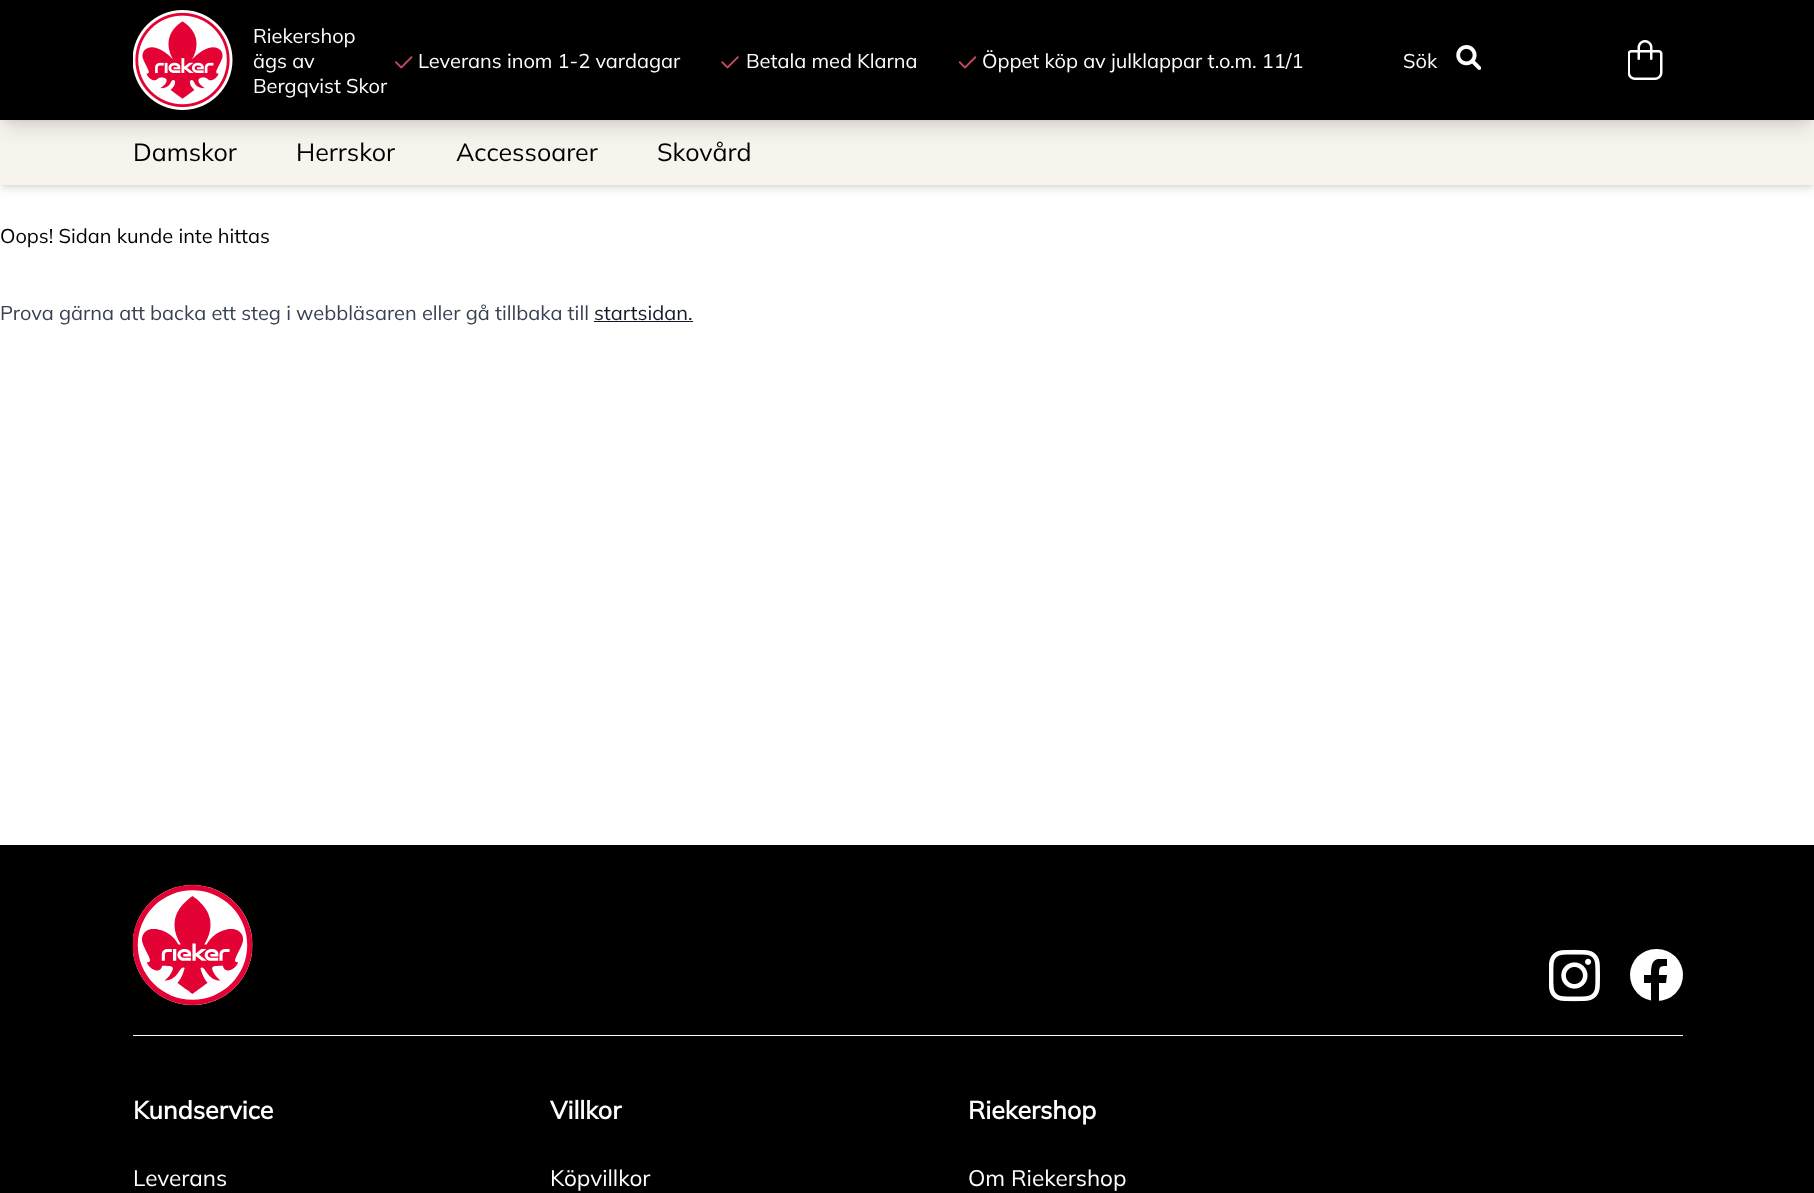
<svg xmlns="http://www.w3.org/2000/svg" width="1814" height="1193">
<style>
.a{font:20px Mulish;fill:#fff}
.b{font:25px Mulish;fill:#000}
.c{font:20px Mulish;fill:#000}
.d{font:20px Mulish;fill:#374151}
.e{font:20px Mulish;fill:#111827}
.f{font:bold 25px Mulish;fill:#fff}
.g{font:22.5px Mulish;fill:#fff}
</style>
<defs>
<clipPath id="clip1"><path d="M1643 959h27v42H1643z"/></clipPath>
</defs>
<rect width="100%" height="100%" fill="#fff"/>
<path fill="#0000001a" filter="blur(2.5px)" d="M3 125h1810v60H3z"/>
<path fill="#0000001a" filter="blur(4px)" d="M1 126h1813v63H1z"/>
<path fill="#f7f4ed" d="M0 120h1814v65H0z"/>
<path fill="#0000001a" filter="blur(4px)" d="M5 10h1805v110H5z"/>
<path fill="#0000001a" filter="blur(9.5px)" d="M4 16h1807v113H4z"/>
<path fill="#000" d="M0 0h1814v120H0z"/>
<image href="1.png" x="133" y="10" width="100" height="100"/>
<image href="2.png" x="395" y="56" width="18" height="13"/>
<image href="3.png" x="721" y="56" width="18" height="13"/>
<image href="4.png" x="958" y="56" width="19" height="13"/>
<image href="5.png" x="1456" y="45" width="25" height="25"/>
<image href="6.png" x="1628" y="40" width="35" height="40"/>
<path fill="#111827" d="M594 321h99v1H594z"/>
<path fill="#000" d="M0 845h1814v348H0z"/>
<path fill="#fff" d="M133 1035h1550v1H133z"/>
<image href="7.png" x="133" y="885" width="120" height="120"/>
<image href="8.png" x="1549" y="949" width="51" height="53"/>
<rect fill="#fff" x="1630" y="949" width="53" height="52" rx="26"/>
<g clip-path="url(#clip1)">
<path fill="#000" d="M1666 983l1-8h-8c0-8 0-9 8-9v-7c-14-2-16 3-16 16h-7v8h7v18h8v-18z"/>
</g>
<text class="a" x="253" y="43">Riekershop</text>
<text class="a" x="253" y="68">ägs av</text>
<text class="a" x="253" y="93">Bergqvist Skor</text>
<text class="a" x="418" y="68">Leverans inom 1-2 vardagar</text>
<text class="a" x="746" y="68">Betala med Klarna</text>
<text class="a" x="982" y="68">Öppet köp av julklappar t.o.m. 11/1</text>
<text class="a" x="1403" y="68">Sök</text>
<text class="b" x="133" y="161">Damskor</text>
<text class="b" x="296" y="161">Herrskor</text>
<text class="b" x="456" y="161">Accessoarer</text>
<text class="b" x="657" y="161">Skovård</text>
<text class="c" x="0" y="243">Oops! Sidan kunde inte hittas</text>
<text class="d" x="0" y="320">Prova gärna att backa ett steg i webbläsaren eller gå tillbaka till</text>
<text class="e" x="594" y="320">startsidan.</text>
<text class="f" x="133" y="1119">Kundservice</text>
<text class="g" x="133" y="1186">Leverans</text>
<text class="f" x="550" y="1119">Villkor</text>
<text class="g" x="550" y="1186">Köpvillkor</text>
<text class="f" x="968" y="1119">Riekershop</text>
<text class="g" x="968" y="1186">Om Riekershop</text>
</svg>
